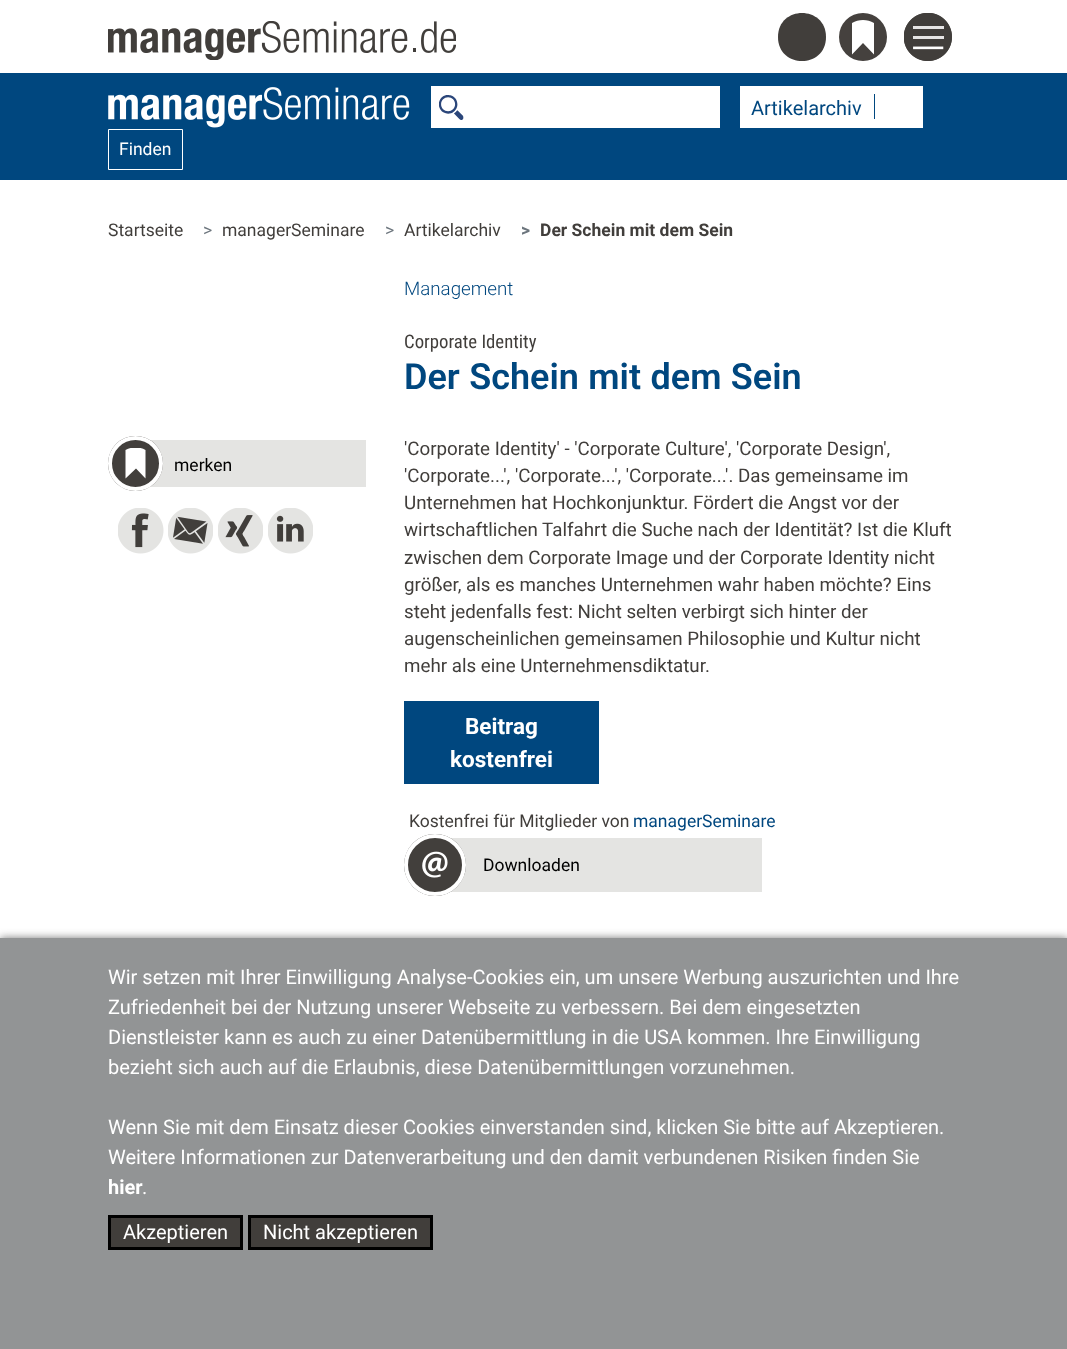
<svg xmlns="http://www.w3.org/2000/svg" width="1067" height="1349">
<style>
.a{font:20px Roboto;fill:#00477f}
.b{font:17.5px Roboto;fill:#fff}
.c{font:17.5px Roboto;fill:#413e3b}
.d{font:17.5px Roboto;fill:#6c757d}
.e{font:bold 17.5px Roboto;fill:#6c757d}
.f{font:bold 17.5px Roboto;fill:#413e3b}
.g{font:300 18.75px Roboto;fill:#00477f}
.h{font:18.75px Roboto Condensed;fill:#413e3b}
.i{font:600 36px Roboto;fill:#00477f}
.j{font:17.5px Roboto;fill:#000}
.k{font:18.75px Roboto;fill:#413e3b}
.l{font:bold 22.5px 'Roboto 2';fill:#fff}
.m{font:17.5px Roboto;fill:#00477f}
.n{font:20px Roboto;fill:#fff}
.o{font:bold 20px Roboto;fill:#fff}
</style>
<defs>
<clipPath id="clip1"><path d="M120 448h31v31H120z"/></clipPath>
</defs>
<rect width="100%" height="100%" fill="#fff"/>
<image href="1.png" x="108" y="21" width="348" height="39"/>
<path fill="#413e3b" d="M778 37c0-32 48-32 48 0c0 32-48 32-48 0"/>
<circle fill="#45413e" cx="863" cy="37" r="24"/>
<path fill="#fff" d="M863 43l11 11.5v-31.5c-6.5-4-15.5-4-22 0v31.5z"/>
<image href="2.png" x="904" y="13" width="48" height="48"/>
<path fill="#00477f" d="M0 73h1067v107H0z"/>
<image href="3.png" x="108" y="87" width="302" height="41"/>
<path fill="#fff" d="M431 86h289v42H431z"/>
<image href="4.png" x="439" y="95" width="25" height="25"/>
<path fill="#fff" d="M740 86h183v42H740z"/>
<path fill="#00477f" d="M874 94h1v25H874z"/>
<path fill="none" stroke="#fff" d="M108.5 129.5h74v40H108.5z"/>
<path fill="#e4e4e2" d="M149 440h217v47H149z"/>
<circle fill="#423f3c" cx="135.5" cy="463.5" r="27.5"/>
<g clip-path="url(#clip1)">
<path fill="#fff" d="M136 468.5l9.5 10v-28.5c-6-3.5-13.5-3.5-20 0v28.5z"/>
</g>
<circle fill="none" stroke="#fff" stroke-width="4" cx="135.5" cy="463.5" r="25.5"/>
<image href="5.png" x="118" y="508" width="46" height="46"/>
<image href="6.png" x="168" y="508" width="45" height="46"/>
<image href="7.png" x="218" y="508" width="45" height="46"/>
<image href="8.png" x="268" y="508" width="45" height="46"/>
<path fill="#00477f" d="M404 701h195v83H404z"/>
<path fill="#e4e4e2" d="M450 838h312v54H450z"/>
<circle fill="#423f3c" cx="435" cy="865" r="31"/>
<image href="9.png" x="422" y="851" width="26" height="27"/>
<circle fill="none" stroke="#fff" stroke-width="4" cx="435" cy="865" r="29"/>
<path fill="#1e1e1e99" filter="blur(4px)" d="M0 938h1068v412H0z"/>
<path fill="#929495" d="M0 938h1067v411H0z"/>
<path fill="#413e3b" stroke="#000" stroke-width="3" d="M109.5 1216.5h132v32H109.5z"/>
<path fill="#413e3b" stroke="#000" stroke-width="3" d="M249.5 1216.5h182v32H249.5z"/>
<text class="a" x="751" y="115">Artikelarchiv</text>
<text class="b" x="119" y="155">Finden</text>
<text class="c" x="108" y="236">Startseite</text>
<text class="d" x="203" y="236">&gt;</text>
<text class="c" x="222" y="236">managerSeminare</text>
<text class="d" x="385" y="236">&gt;</text>
<text class="c" x="404" y="236">Artikelarchiv</text>
<text class="e" x="521" y="236">&gt;</text>
<text class="f" x="540" y="236">Der Schein mit dem Sein</text>
<text class="g" x="404" y="295">Management</text>
<text class="h" x="404" y="348">Corporate Identity</text>
<text class="i" x="404" y="389" word-spacing="0.5">Der Schein mit dem Sein</text>
<text class="j" x="174" y="471">merken</text>
<text class="k" x="404" y="455">'Corporate Identity' - 'Corporate Culture', 'Corporate Design',</text>
<text class="k" x="404" y="482">'Corporate...', 'Corporate...', 'Corporate...'. Das gemeinsame im</text>
<text class="k" x="404" y="509">Unternehmen hat Hochkonjunktur. Fördert die Angst vor der</text>
<text class="k" x="404" y="536">wirtschaftlichen Talfahrt die Suche nach der Identität? Ist die Kluft</text>
<text class="k" x="404" y="564">zwischen dem Corporate Image und der Corporate Identity nicht</text>
<text class="k" x="404" y="591">größer, als es manches Unternehmen wahr haben möchte? Eins</text>
<text class="k" x="404" y="618">steht jedenfalls fest: Nicht selten verbirgt sich hinter der</text>
<text class="k" x="404" y="645">augenscheinlichen gemeinsamen Philosophie und Kultur nicht</text>
<text class="k" x="404" y="672">mehr als eine Unternehmensdiktatur.</text>
<text class="l" x="465" y="734">Beitrag</text>
<text class="l" x="450" y="767">kostenfrei</text>
<text class="c" x="409" y="827">Kostenfrei für Mitglieder von</text>
<text class="m" x="633" y="827">managerSeminare</text>
<text class="j" x="483" y="871">Downloaden</text>
<text class="n" x="108" y="984">Wir setzen mit Ihrer Einwilligung Analyse-Cookies ein, um unsere Werbung auszurichten und Ihre</text>
<text class="n" x="108" y="1014">Zufriedenheit bei der Nutzung unserer Webseite zu verbessern. Bei dem eingesetzten</text>
<text class="n" x="108" y="1044">Dienstleister kann es auch zu einer Datenübermittlung in die USA kommen. Ihre Einwilligung</text>
<text class="n" x="108" y="1074">bezieht sich auch auf die Erlaubnis, diese Datenübermittlungen vorzunehmen.</text>
<text class="n" x="108" y="1134">Wenn Sie mit dem Einsatz dieser Cookies einverstanden sind, klicken Sie bitte auf Akzeptieren.</text>
<text class="n" x="108" y="1164">Weitere Informationen zur Datenverarbeitung und den damit verbundenen Risiken finden Sie</text>
<text class="o" x="108" y="1194">hier</text>
<text class="n" x="142" y="1194">.</text>
<text class="n" x="123" y="1239">Akzeptieren</text>
<text class="n" x="263" y="1239">Nicht akzeptieren</text>
</svg>
